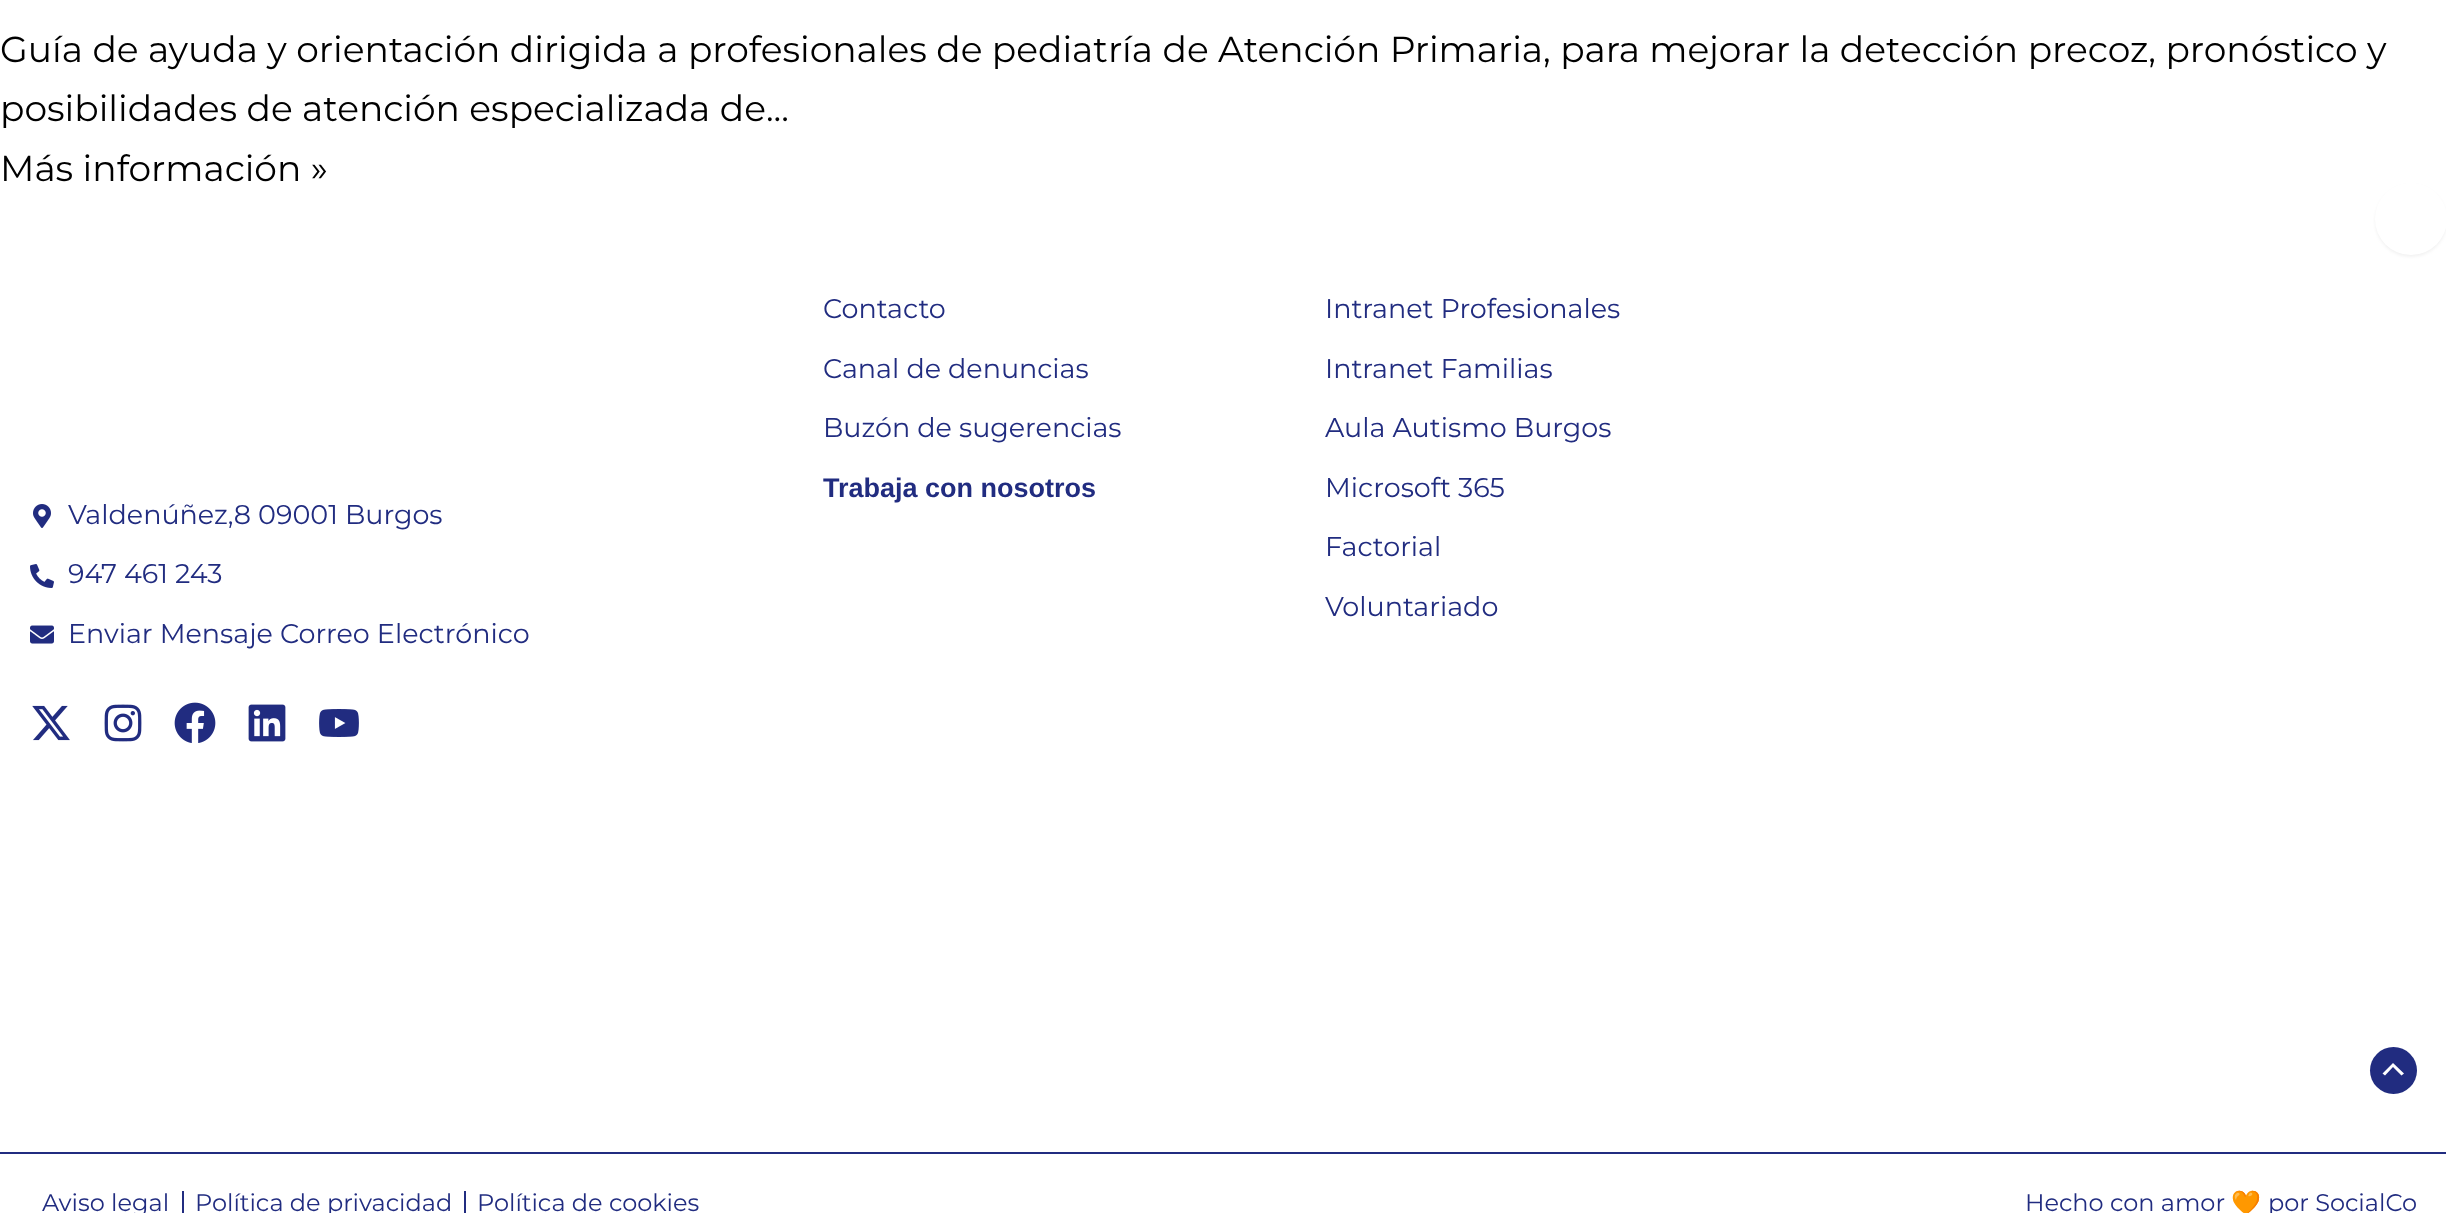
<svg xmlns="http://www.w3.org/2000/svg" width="2446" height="1213">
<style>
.a{font:100 36px Montserrat;fill:#000}
.b{font:100 27px Montserrat;fill:#212c80}
.c{font:bold 27px Liberation Sans;fill:#212c80}
.d{font:100 24px Montserrat;fill:#212c80}
.e{font:24px Noto Color Emoji;fill:#212c80}
</style>
<rect width="100%" height="100%" fill="#fff"/>
<image href="1.png" x="33" y="504" width="18" height="24"/>
<image href="2.png" x="30" y="564" width="24" height="24"/>
<image href="3.png" x="30" y="625" width="24" height="19"/>
<image href="4.png" x="32" y="705" width="38" height="36"/>
<image href="5.png" x="104" y="704" width="38" height="38"/>
<image href="6.png" x="174" y="702" width="42" height="41"/>
<image href="7.png" x="248" y="704" width="38" height="38"/>
<image href="8.png" x="319" y="709" width="40" height="28"/>
<path fill="#212c80" d="M0 1152h2446v2H0z"/>
<path fill="#212c80" d="M182 1191h2v22H182z"/>
<path fill="#212c80" d="M464 1191h2v22H464z"/>
<rect fill="#0000000d" filter="blur(1.5px)" x="2375" y="185" width="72" height="72" rx="36"/>
<circle fill="#fff" cx="2411" cy="219" r="36"/>
<circle fill="#212c80" cx="2393.5" cy="1070.5" r="23.5"/>
<path fill="#fff" d="M2404 1073.5l-11-10.5l-10.5 10.5l2.5 2l8-8.5l8.5 8.5z"/>
<text class="a" x="0" y="62">Guía de ayuda y orientación dirigida a profesionales de pediatría de Atención Primaria, para mejorar la detección precoz, pronóstico y</text>
<text class="a" x="0" y="121">posibilidades de atención especializada de...</text>
<text class="a" x="0" y="181">Más información »</text>
<text class="b" x="823" y="318">Contacto</text>
<text class="b" x="823" y="378">Canal de denuncias</text>
<text class="b" x="823" y="437">Buzón de sugerencias</text>
<text class="c" x="823" y="497">Trabaja con nosotros</text>
<text class="b" x="1325" y="318">Intranet Profesionales</text>
<text class="b" x="1325" y="378">Intranet Familias</text>
<text class="b" x="1325" y="437">Aula Autismo Burgos</text>
<text class="b" x="1325" y="497">Microsoft 365</text>
<text class="b" x="1325" y="556">Factorial</text>
<text class="b" x="1325" y="616">Voluntariado</text>
<text class="b" x="68" y="524">Valdenúñez,8 09001 Burgos</text>
<text class="b" x="68" y="583">947 461 243</text>
<text class="b" x="68" y="643">Enviar Mensaje Correo Electrónico</text>
<text class="d" x="42" y="1211">Aviso legal</text>
<text class="d" x="195" y="1211">Política de privacidad</text>
<text class="d" x="477" y="1211">Política de cookies</text>
<text class="d" x="2025" y="1211">Hecho con amor</text>
<text class="e" x="2231" y="1211">🧡</text>
<text class="d" x="2268" y="1211">por SocialCo</text>
</svg>
